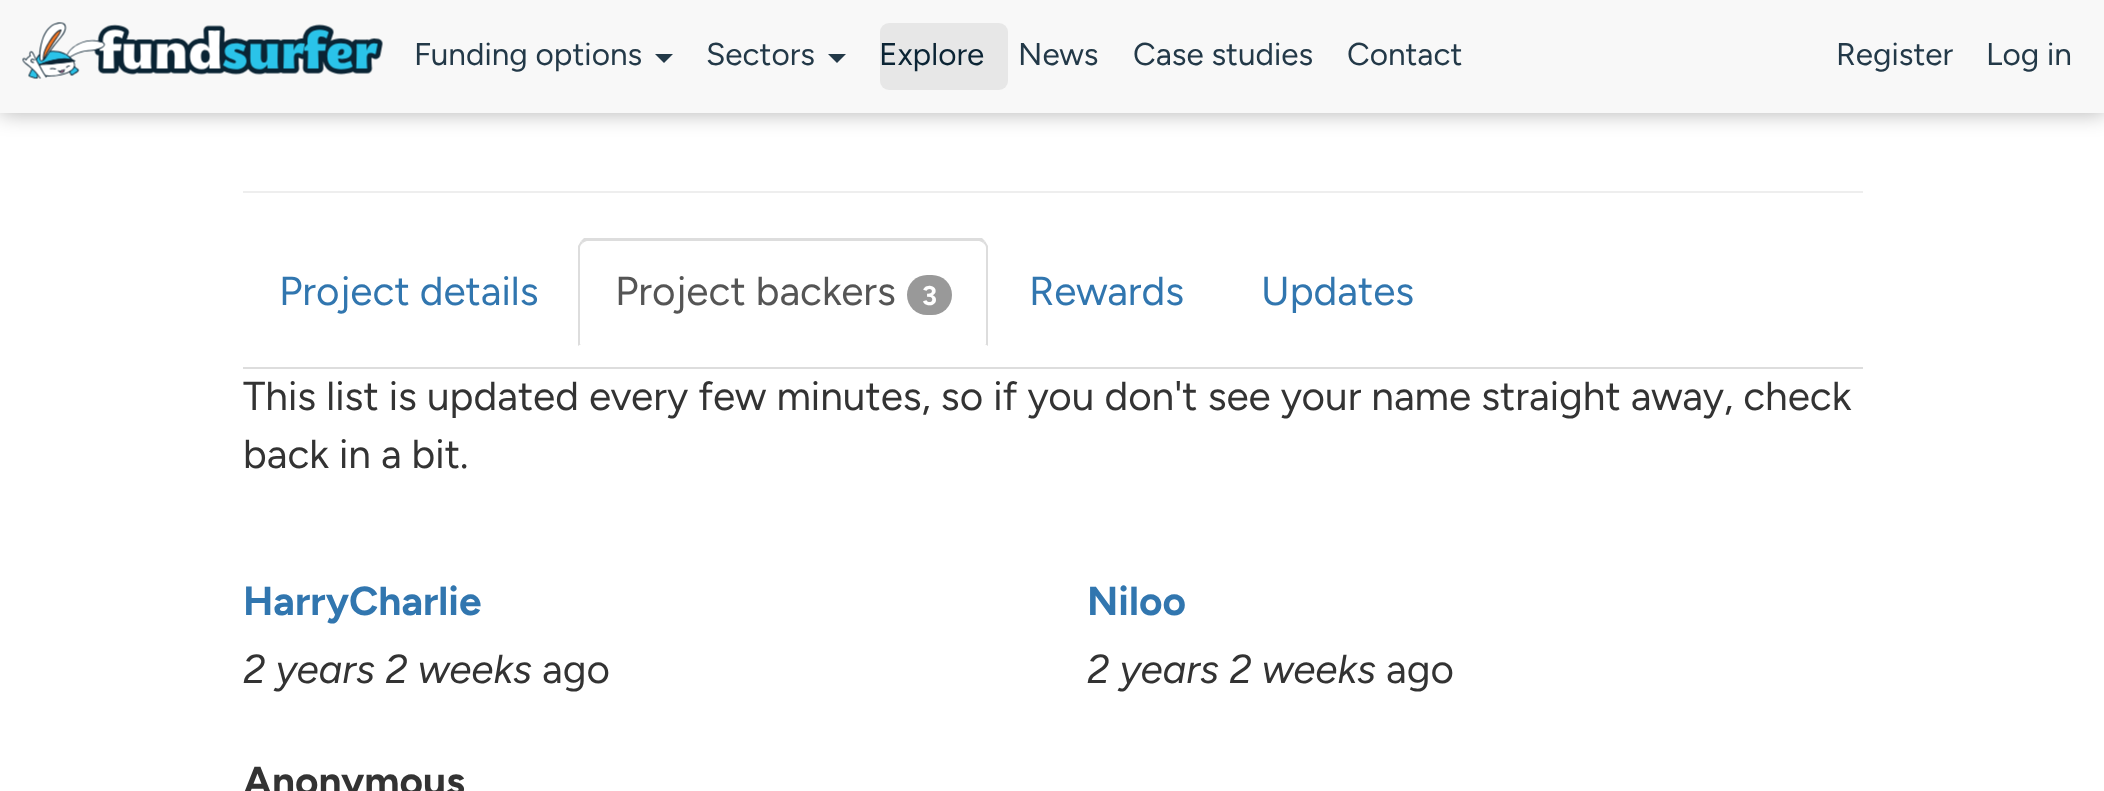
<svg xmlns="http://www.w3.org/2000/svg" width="2104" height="791">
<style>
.a{font:31.5px Figtree;fill:#233948}
.b{font:31.5px Figtree;fill:#0b2434}
.c{font:40.5px Figtree;fill:#3176af}
.d{font:40.5px Figtree;fill:#555}
.e{font:bold 27px Figtree;fill:#fff}
.f{font:40.5px Figtree;fill:#333}
.g{font:bold 40.5px Figtree;fill:#3176af}
.h{font:italic 40.5px Figtree;fill:#333}
.i{font:bold 40.5px Figtree;fill:#333}
</style>
<rect width="100%" height="100%" fill="#fff"/>
<path fill="#0000004d" filter="blur(11px)" d="M0 0h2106v113H0z"/>
<path fill="#f8f8f8" d="M0 0h2104v113H0z"/>
<image href="1.png" x="22" y="22" width="361" height="57"/>
<path fill="#233948" d="M655 54h18l-9 9z"/>
<path fill="#233948" d="M828 54h18l-9 9z"/>
<rect fill="#e7e7e7" x="880" y="23" width="128" height="67" rx="9"/>
<path fill="#eee" d="M243 191h1620v2H243z"/>
<path fill="#ddd" d="M243 367h1620v2H243z"/>
<path fill="#ddd" d="M587 241c-1 0-3 1-4 2l-2-2c1-1 2-2 3-3h398c1 1 2 2 3 3l-2 2c-1-1-3-2-4-2z"/>
<path fill="#ddd" d="M988 346l-3-2h1v-96c0-2-1-4-3-5l2-2l3 5z"/>
<path fill="#ddd" d="M578 246l3-5l2 2c-2 1-3 3-3 5v96h1l-3 2z"/>
<rect fill="#999" x="907" y="275" width="45" height="40" rx="20"/>
<text class="a" x="414" y="65">Funding options</text>
<text class="a" x="706" y="65">Sectors</text>
<text class="b" x="879" y="65">Explore</text>
<text class="a" x="1018" y="65">News</text>
<text class="a" x="1133" y="65">Case studies</text>
<text class="a" x="1347" y="65">Contact</text>
<text class="a" x="1836" y="65">Register</text>
<text class="a" x="1986" y="65">Log in</text>
<text class="c" x="279" y="305">Project details</text>
<text class="d" x="615" y="305">Project backers</text>
<text class="e" x="922" y="305">3</text>
<text class="c" x="1029" y="305">Rewards</text>
<text class="c" x="1261" y="305">Updates</text>
<text class="f" x="243" y="410">This list is updated every few minutes, so if you don't see your name straight away, check</text>
<text class="f" x="243" y="468">back in a bit.</text>
<text class="g" x="243" y="615">HarryCharlie</text>
<text class="h" x="243" y="683">2 years 2 weeks</text>
<text class="f" x="542" y="683">ago</text>
<text class="g" x="1087" y="615">Niloo</text>
<text class="h" x="1087" y="683">2 years 2 weeks</text>
<text class="f" x="1386" y="683">ago</text>
<text class="i" x="243" y="795">Anonymous</text>
</svg>
